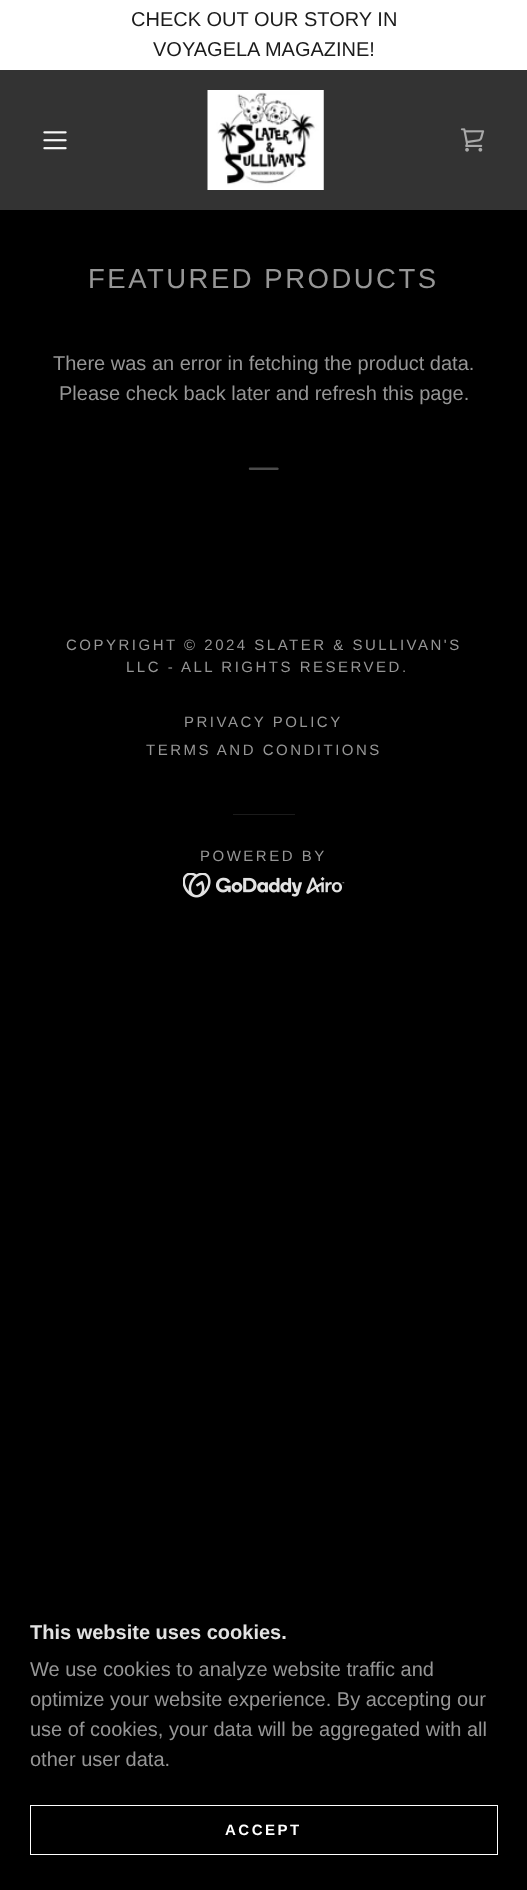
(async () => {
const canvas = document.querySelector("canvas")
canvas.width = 527
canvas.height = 1890
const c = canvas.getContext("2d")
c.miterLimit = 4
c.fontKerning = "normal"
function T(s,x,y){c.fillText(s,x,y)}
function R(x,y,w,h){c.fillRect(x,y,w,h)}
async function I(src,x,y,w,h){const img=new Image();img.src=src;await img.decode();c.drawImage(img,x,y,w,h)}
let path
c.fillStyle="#000"
R(0,0,527,1890)
c.fillStyle="#fff"
R(0,0,527,70)
c.font="20px Liberation Sans"
c.fillStyle="#1b1b1b"
T("CHECK OUT OUR STORY IN",131,26)
T("VOYAGELA MAGAZINE!",153,56)
c.fillStyle="#333"
R(0,70,527,140)
await I("1.png",43,131,24,19)
await I("2.png",207,90,117,100)
await I("3.png",460,128,25,24)
c.letterSpacing="2.5px"
c.font="27.5px Liberation Sans"
c.fillStyle="#969696"
T("FEATURED PRODUCTS",88,288)
c.letterSpacing="0px"
c.font="20px Liberation Sans"
T("There was an error in fetching the product data.",53,370)
T("Please check back later and refresh this page.",59,400)
c.fillStyle="#4b4b4b"
path = new Path2D("M277.5 470h-27.5c-1.5 0-1.5-2-.5-2.5h28l1 .5c.5 1 0 2-1 2")
c.fill(path,"evenodd")
c.letterSpacing="2.5px"
c.font="15px Liberation Sans"
c.fillStyle="#969696"
T("COPYRIGHT © 2024 SLATER & SULLIVAN'S",66,650)
T("LLC - ALL RIGHTS RESERVED.",126,672)
T("PRIVACY POLICY",184,727)
T("TERMS AND CONDITIONS",146,755)
c.fillStyle="#1b1b1b"
R(233,814,62,1)
c.fillStyle="#969696"
T("POWERED BY",200,861)
await I("4.png",183,873,162,25)
c.letterSpacing="0px"
c.font="bold 20px Liberation Sans"
c.fillStyle="#e2e2e2"
T("This website uses cookies.",30,1639)
c.font="20px Liberation Sans"
c.fillStyle="#969696"
T("We use cookies to analyze website traffic and",30,1676)
T("optimize your website experience. By accepting our",30,1706)
T("use of cookies, your data will be aggregated with all",30,1736)
T("other user data.",30,1766)
c.strokeStyle="#fff"
c.strokeRect(30.5,1805.5,467,49)
c.letterSpacing="2.5px"
c.font="bold 15px Liberation Sans"
c.fillStyle="#fff"
T("ACCEPT",225,1835)
})()
